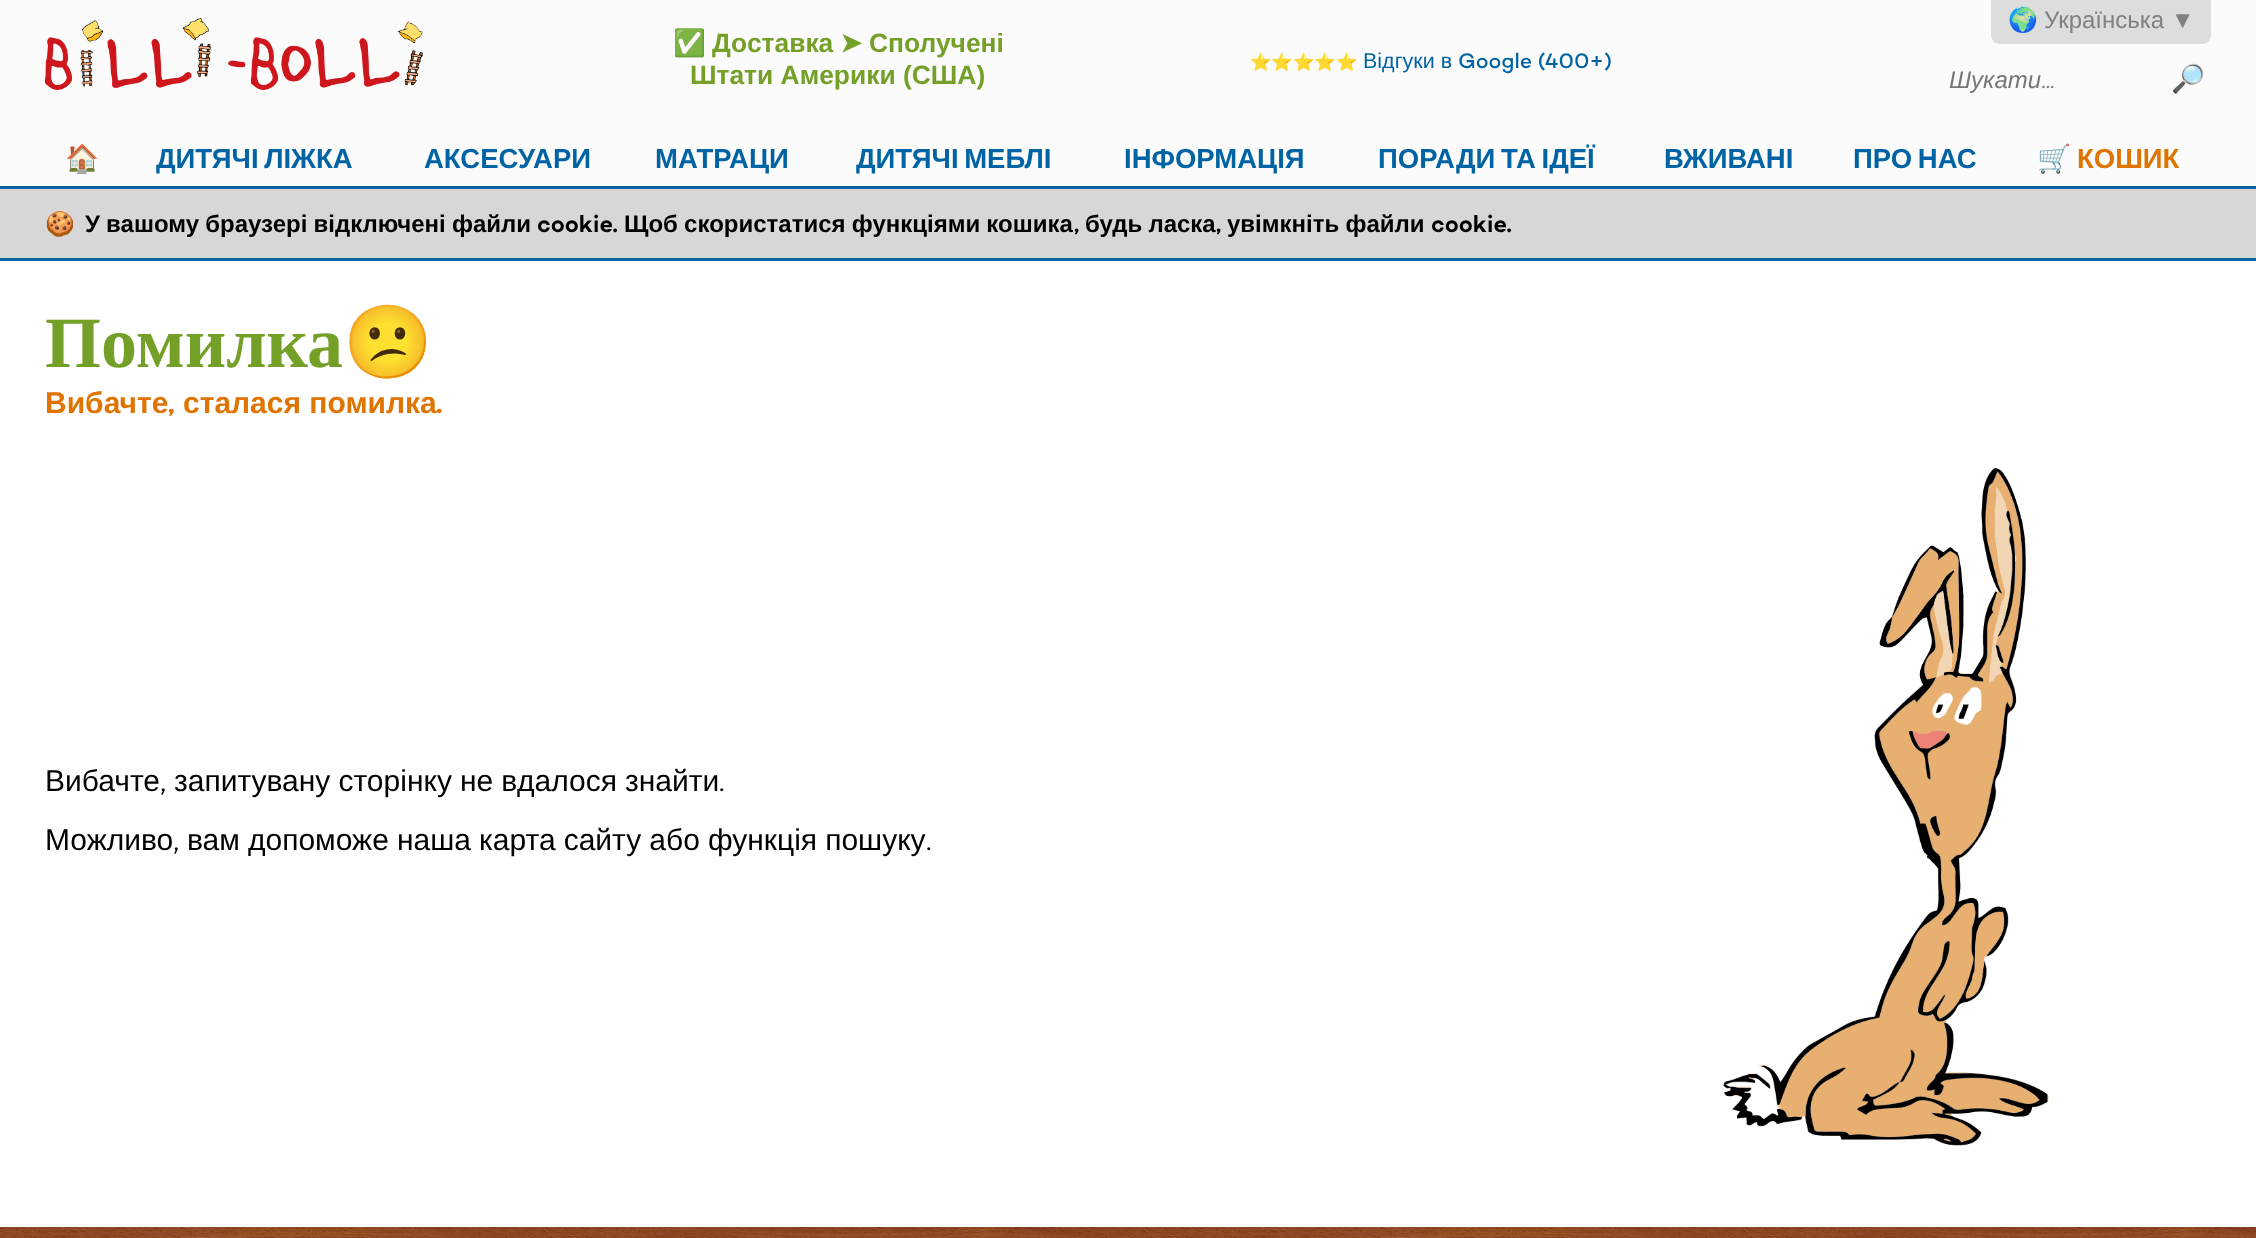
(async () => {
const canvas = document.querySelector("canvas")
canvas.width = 2256
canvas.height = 1238
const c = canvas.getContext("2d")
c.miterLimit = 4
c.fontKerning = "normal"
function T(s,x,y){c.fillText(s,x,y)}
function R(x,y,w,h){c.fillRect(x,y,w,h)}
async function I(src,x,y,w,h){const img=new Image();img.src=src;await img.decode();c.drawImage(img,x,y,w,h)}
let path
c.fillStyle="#fff"
R(0,0,2256,1238)
c.fillStyle="#fbfbfb"
R(0,0,2256,186)
await I("1.png",45,18,378,72)
c.font="bold 26.4px Noto Color Emoji"
c.fillStyle="#74a027"
T("✅",673,52)
c.font="bold 26.4px Liberation Sans"
T("Доставка",712,52)
c.font="bold 26.4px DejaVu Sans"
T("➤",840,52)
c.font="bold 26.4px Liberation Sans"
T("Сполучені",869,52)
T("Штати Америки (США)",690,84)
c.font="17.25px Noto Color Emoji"
c.fillStyle="#0063a3"
T("⭐⭐⭐⭐⭐",1250,68)
c.font="21.5px Liberation Sans"
T("Відгуки в",1363,68)
c.font="21.5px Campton"
T("Google (400+)",1458,68)
c.fillStyle="#ddd"
path = new Path2D("M1991-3h220v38c0 5-4 9-9 9h-202c-5 0-9-4-9-9z")
c.fill(path)
c.font="24px Noto Color Emoji"
c.fillStyle="#808080"
T("🌍",2008,28)
c.font="24px Liberation Sans"
T("Українська ▼",2044,28)
c.font="italic 24px Liberation Sans"
c.fillStyle="#777"
T("Шукати",1949,88)
c.font="italic 24px Campton"
T("...",2041,88)
c.font="bold 27.5px Noto Color Emoji"
c.fillStyle="#0063a3"
T("🔎",2171,88)
R(0,186,2256,3)
T("🏠",65,168)
c.wordSpacing="-2px"
c.font="bold 27.5px Liberation Sans"
T("ДИТЯЧІ ЛІЖКА",156,168)
c.wordSpacing="0px"
T("АКСЕСУАРИ",424,168)
T("МАТРАЦИ",655,168)
c.wordSpacing="-2px"
T("ДИТЯЧІ МЕБЛІ",856,168)
c.wordSpacing="0px"
T("ІНФОРМАЦІЯ",1124,168)
c.wordSpacing="-2px"
T("ПОРАДИ ТА ІДЕЇ",1378,168)
c.wordSpacing="0px"
T("ВЖИВАНІ",1664,168)
c.wordSpacing="-2px"
T("ПРО НАС",1853,168)
c.wordSpacing="0px"
c.font="bold 27.5px Noto Color Emoji"
c.fillStyle="#e07400"
T("🛒",2037,168)
c.font="bold 27.5px Liberation Sans"
T("КОШИК",2077,168)
c.fillStyle="#d7d7d7"
R(0,189,2256,69)
c.fillStyle="#0063a3"
R(0,258,2256,3)
c.font="24px Noto Color Emoji"
c.fillStyle="#000"
T("🍪",45,232)
c.wordSpacing="-0.5px"
c.font="bold 24px Liberation Sans"
T("У вашому браузері відключені файли",85,232)
c.wordSpacing="0px"
c.font="24px 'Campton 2'"
T("cookie.",537,232)
c.wordSpacing="-0.5px"
c.font="bold 24px Liberation Sans"
T("Щоб скористатися функціями кошика",624,232)
c.wordSpacing="0px"
c.font="24px 'Campton 2'"
T(",",1074,232)
c.wordSpacing="-0.5px"
c.font="bold 24px Liberation Sans"
T("будь ласка",1085,232)
c.wordSpacing="0px"
c.font="24px 'Campton 2'"
T(",",1216,232)
c.wordSpacing="-0.5px"
c.font="bold 24px Liberation Sans"
T("увімкніть файли",1227,232)
c.wordSpacing="0px"
c.font="24px 'Campton 2'"
T("cookie.",1431,232)
c.font="bold 72px Liberation Serif"
c.fillStyle="#74a027"
T("Помилка",45,367)
c.font="bold 72px Noto Color Emoji"
T("😕",343,367)
c.font="bold 30px Liberation Sans"
c.fillStyle="#e07400"
T("Вибачте",45,413)
c.font="30px 'Campton 2'"
T(",",168,413)
c.font="bold 30px Liberation Sans"
T("сталася помилка",183,413)
c.font="30px 'Campton 2'"
T(".",436,413)
c.font="30px Liberation Sans"
c.fillStyle="#000"
T("Вибачте",45,791)
c.font="30px 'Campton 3'"
T(",",160,791)
c.wordSpacing="-0.25px"
c.font="30px Liberation Sans"
T("запитувану сторінку не вдалося знайти",174,791)
c.wordSpacing="0px"
c.font="30px 'Campton 3'"
T(".",719,791)
c.font="30px Liberation Sans"
T("Можливо",45,850)
c.font="30px 'Campton 3'"
T(",",173,850)
c.wordSpacing="-0.25px"
c.font="30px Liberation Sans"
T("вам допоможе наша карта сайту або функція пошуку",187,850)
c.wordSpacing="0px"
c.font="30px 'Campton 3'"
T(".",926,850)
await I("2.png",1723,468,326,678)
await I("3.png",0,1227,2256,11)
})()
